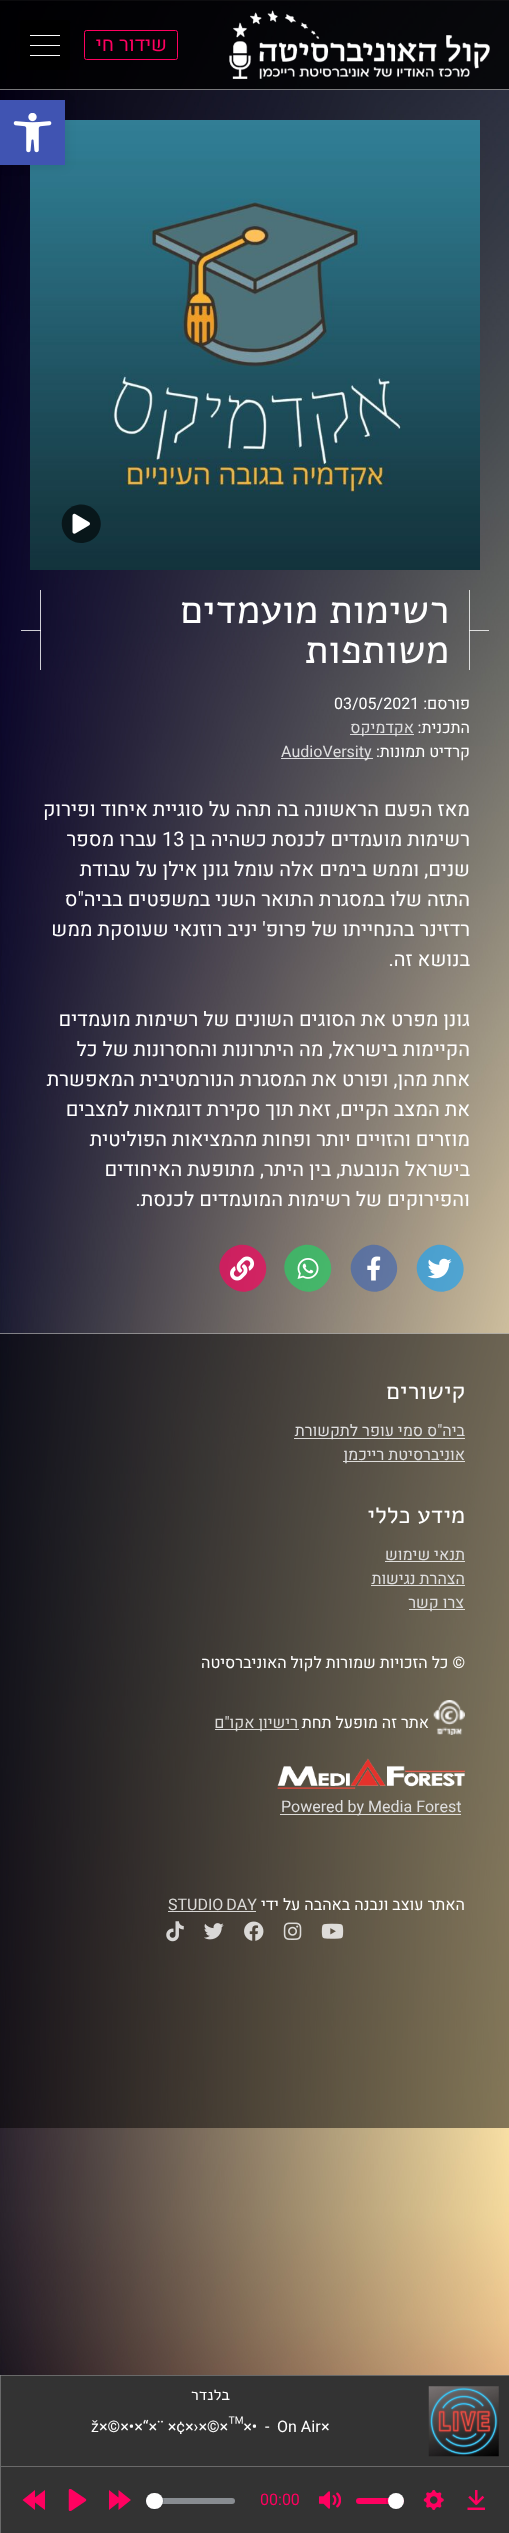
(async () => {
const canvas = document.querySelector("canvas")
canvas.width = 509
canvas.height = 2533
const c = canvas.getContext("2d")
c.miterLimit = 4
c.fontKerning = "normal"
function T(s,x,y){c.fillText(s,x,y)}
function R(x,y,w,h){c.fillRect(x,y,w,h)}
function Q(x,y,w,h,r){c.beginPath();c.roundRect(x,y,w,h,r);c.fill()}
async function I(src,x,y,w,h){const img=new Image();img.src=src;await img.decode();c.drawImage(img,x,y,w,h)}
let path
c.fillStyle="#fff"
R(0,0,509,2533)
await I("1.png",0,0,509,2375)
await I("3.png",30,120,450,450)
c.fillStyle="#0000001a"
c.filter="blur(6px)"
c.beginPath()
c.rect(0,100,65,65)
c.fill()
c.filter="none"
c.fillStyle="#000000cc"
R(0,0,509,90)
c.fillStyle="#ffffff78"
R(0,89,509,1)
await I("2.png",229,10,261,69)
c.beginPath()
c.roundRect(84.5,30.5,93,29,2)
c.strokeStyle="#ff0160"
c.stroke()
c.direction="rtl"
c.font="20px Heebo"
c.fillStyle="#ff0160"
T("שידור חי",167,51)
c.fillStyle="#000"
Q(20,20,50,50,2.5)
c.fillStyle="#fff"
R(30,35,30,1)
R(30,45,30,1)
R(30,55,30,1)
c.fillStyle="#00000099"
path = new Path2D("M67.5 510c3-3 7.5-5 12-5.5c18-1.5 28.5 20 15.5 33c-3 3-7.5 5-12 5.5c-18 1.5-28.5-20-15.5-33z")
c.fill(path)
await I("4.png",72,513,18,21)
c.fillStyle="#ffffffcc"
R(469,590,1,80)
R(40,590,1,80)
c.font="40px Alef"
c.fillStyle="#fff"
T("רשימות מועמדים",449,623)
c.fillStyle="#ffffffcc"
R(469,630,20,1)
R(21,630,20,1)
c.fillStyle="#fff"
T("משותפות",449,663)
c.font="16px Heebo"
T("פורסם:",470,709)
c.direction="ltr"
T("03/05/2021",334,709)
c.direction="rtl"
T("התכנית:",470,733)
c.fillStyle="#ffffffcc"
R(350,734,64,1)
c.fillStyle="#dededf"
T("אקדמיקס",414,733)
c.fillStyle="#fff"
T("קרדיט תמונות:",470,757)
c.fillStyle="#ffffffcc"
R(281,758,92,1)
c.direction="ltr"
c.fillStyle="#dededf"
T("AudioVersity",281,757)
c.direction="rtl"
c.font="20px Heebo"
c.fillStyle="#fff"
T("מאז הפעם הראשונה בה תהה על סוגיית איחוד ופירוק",470,816)
T("רשימות מועמדים לכנסת כשהיה בן",470,846)
c.direction="ltr"
T("13",162,846)
c.direction="rtl"
T("עברו מספר",157,846)
T("שנים, וממש בימים אלה עומל גונן אילן על עבודת",470,876)
T("התזה שלו במסגרת התואר השני במשפטים בביה\"ס",470,906)
T("רדזינר בהנחייתו של פרופ' יניב רוזנאי שעוסקת ממש",470,936)
T("בנושא זה.",470,966)
T("גונן מפרט את הסוגים השונים של רשימות מועמדים",470,1026)
T("הקיימות בישראל, מה היתרונות והחסרונות של כל",470,1056)
T("אחת מהן, ופורט את המסגרת הנורמטיבית המאפשרת",470,1086)
T("את המצב הקיים, זאת תוך סקירת דוגמאות למצבים",470,1116)
T("מוזרים והזויים יותר ופחות מהמציאות הפוליטית",470,1146)
T("בישראל הנובעת, בין היתר, מתופעת האיחודים",470,1176)
T("והפירוקים של רשימות המועמדים לכנסת.",470,1206)
c.fillStyle="#1da1f2ab"
path = new Path2D("M424 1252c21-22 54 11 33 33c-22 21-55-12-33-33z")
c.fill(path)
await I("5.png",427,1258,25,21)
c.fillStyle="#4267b2ab"
path = new Path2D("M358 1252c21-22 54 11 32 33c-21 21-54-12-32-33z")
c.fill(path)
await I("6.png",367,1256,14,25)
c.fillStyle="#25d366ab"
path = new Path2D("M291 1252c22-22 55 11 33 33c-21 21-54-12-33-33z")
c.fill(path)
await I("7.png",297,1258,22,21)
c.fillStyle="#ff0160ab"
path = new Path2D("M226 1252c22-22 55 11 33 33c-21 21-54-12-33-33z")
c.fill(path)
await I("8.png",230,1256,25,25)
c.fillStyle="#00000078"
R(0,1333,509,795)
c.fillStyle="#ffffff78"
R(0,1333,509,1)
c.font="24px Alef"
c.fillStyle="#fff"
T("קישורים",465,1399)
c.fillStyle="#ffffffcc"
R(294,1438,171,1)
c.font="16px Heebo"
c.fillStyle="#dededf"
T("ביה\"ס סמי עופר לתקשורת",465,1436)
c.fillStyle="#ffffffcc"
R(343,1461,122,1)
c.fillStyle="#dededf"
T("אוניברסיטת רייכמן",465,1460)
c.font="24px Alef"
c.fillStyle="#fff"
T("מידע כללי",465,1523)
c.font="16px Heebo"
c.fillStyle="#dededf"
T("תנאי שימוש",465,1560)
c.fillStyle="#ffffffcc"
R(385,1561,80,1)
c.fillStyle="#dededf"
T("הצהרת נגישות",465,1584)
c.fillStyle="#ffffffcc"
R(371,1585,94,1)
R(409,1609,56,1)
c.fillStyle="#dededf"
T("צרו קשר",464,1608)
c.fillStyle="#fff"
T("© כל הזכויות שמורות לקול האוניברסיטה",465,1668)
await I("9.png",433,1700,32,35)
T("אתר זה מופעל תחת",429,1728)
c.fillStyle="#ffffffcc"
R(215,1729,84,1)
c.fillStyle="#dbdad8"
T("רישיון אקו\"ם",298,1728)
await I("10.png",277,1758,188,31)
c.fillStyle="#ffffffcc"
R(280,1814,181,1)
c.direction="ltr"
c.fillStyle="#dededf"
T("Powered by Media Forest",281,1812)
c.direction="rtl"
c.fillStyle="#fff"
T("האתר עוצב ונבנה באהבה על ידי",465,1910)
c.wordSpacing="-1px"
c.direction="ltr"
c.fillStyle="#dbdad8"
T("STUDIO DAY",168,1910)
c.fillStyle="#ffffffcc"
R(168,1911,88,1)
await I("11.png",321,1923,23,16)
await I("12.png",283,1922,19,18)
await I("13.png",244,1921,20,20)
await I("14.png",204,1923,20,17)
await I("15.png",166,1921,18,21)
c.fillStyle="#333"
c.beginPath()
c.rect(.5,2375.5,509,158)
c.fill()
c.strokeStyle="#696969"
c.stroke()
await I("16.png",428,2386,71,71)
c.wordSpacing="0px"
c.direction="rtl"
c.font="16px Alef"
c.fillStyle="#fff"
T("בלנדר",230,2400)
c.direction="ltr"
c.font="16px Heebo"
T("×",321,2432)
T("On Air",277,2432)
T("-",265,2432)
T("×©×•×“×¨ ×¢×›×©×™×•",99,2432)
c.font="16px Liberation Sans"
T("ž",91,2432)
c.fillStyle="#696969"
R(1,2466,508,1)
await I("17.png",467,2490,18,20)
await I("18.png",423,2490,21,20)
c.fillStyle="#ff0160"
Q(356,2498,48,6,3)
c.beginPath()
c.arc(395.5,2500.5,9,0,7)
c.strokeStyle="#23282f33"
c.stroke()
c.fillStyle="#23282f26"
c.filter="blur(0.5px)"
c.beginPath()
c.roundRect(388,2494,16,16,8)
c.fill()
c.filter="none"
c.fillStyle="#fff"
c.beginPath()
c.arc(396,2501,8,0,7)
c.fill()
await I("19.png",319,2491,22,18)
c.font="16px Heebo"
c.fillStyle="#ff0160"
T("00:00",260,2505)
c.fillStyle="#c1c8d199"
Q(146,2498,89,6,3)
c.beginPath()
c.arc(154.5,2500.5,9,0,7)
c.stroke()
c.fillStyle="#23282f26"
c.filter="blur(0.5px)"
c.beginPath()
c.roundRect(146,2494,17,16,8)
c.fill()
c.filter="none"
c.fillStyle="#fff"
Q(146,2493,17,16,8)
c.fillStyle="#ff0160"
path = new Path2D("M118.5 2497.5l-9.5-7.5v20l9.5-7.5v7.5l12.5-10l-12.5-10z")
c.fill(path)
await I("20.png",68,2489,19,22)
path = new Path2D("M35 2490l-12.5 10l12.5 10v-7.5l10 7.5v-20l-10 7.5z")
c.fill(path)
c.fillStyle="#4054b2"
R(0,100,65,65)
await I("21.png",13,113,39,40)
})()
